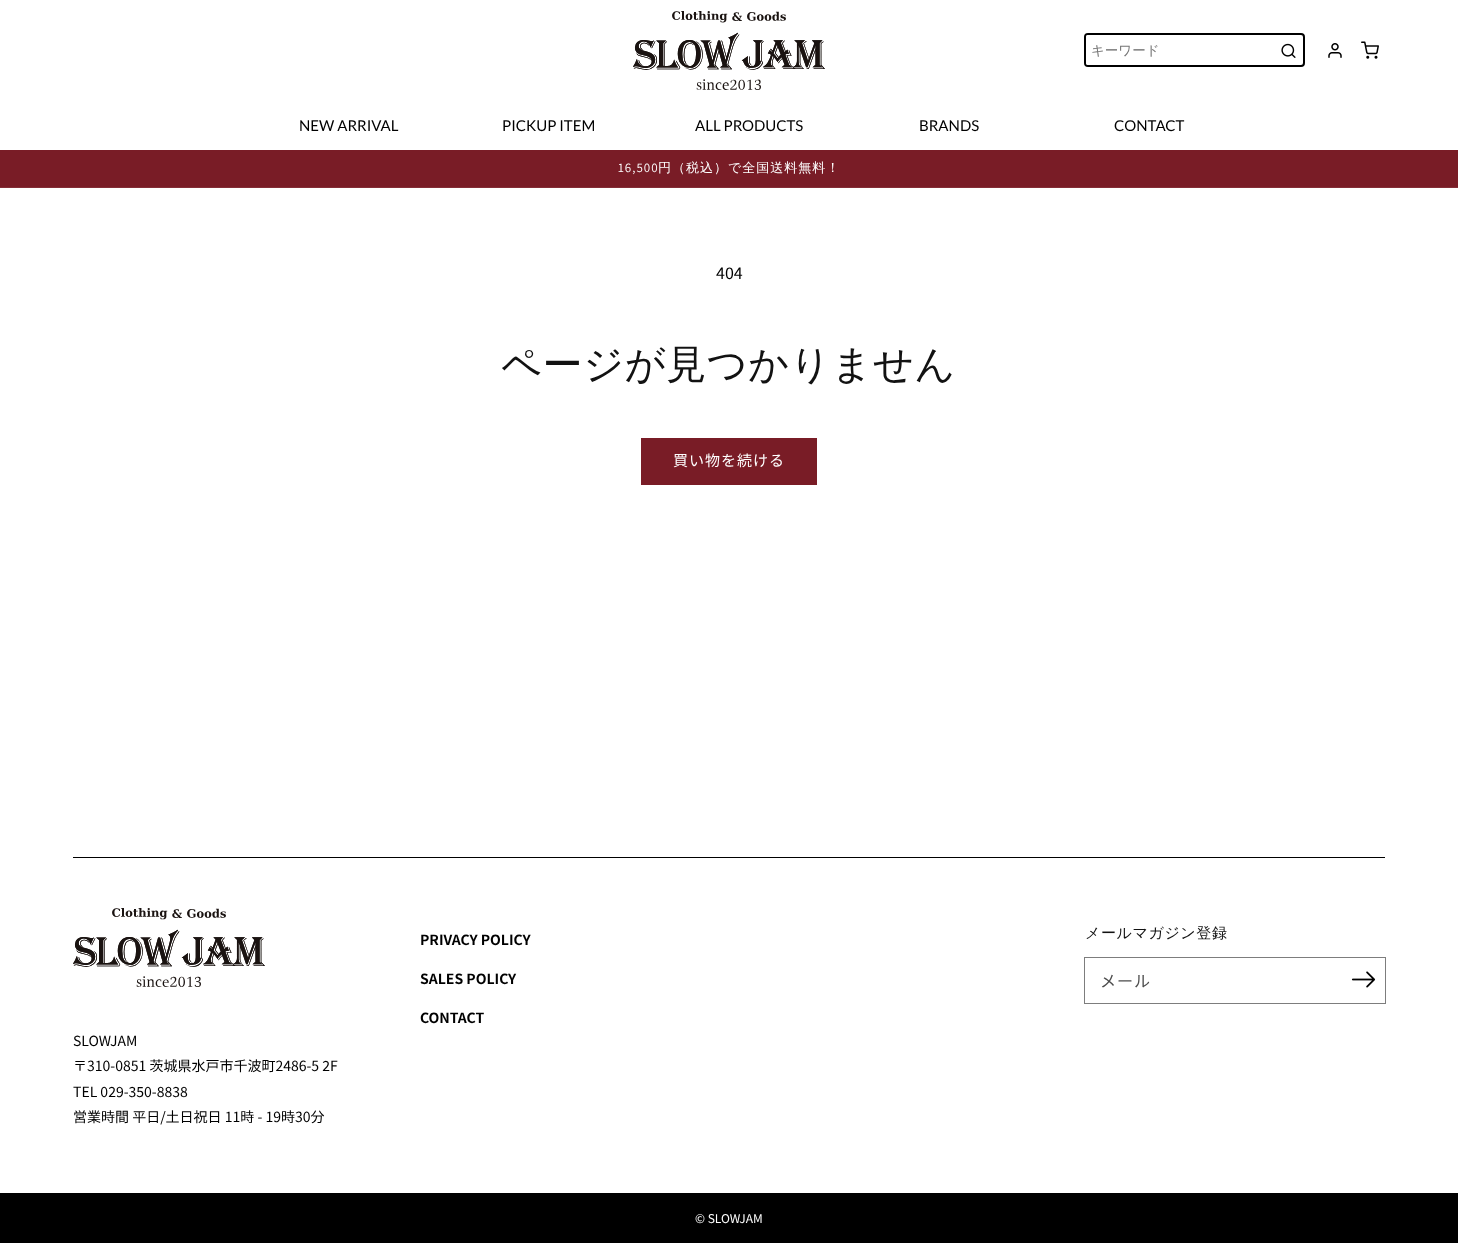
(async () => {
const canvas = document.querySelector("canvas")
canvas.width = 1458
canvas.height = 1243
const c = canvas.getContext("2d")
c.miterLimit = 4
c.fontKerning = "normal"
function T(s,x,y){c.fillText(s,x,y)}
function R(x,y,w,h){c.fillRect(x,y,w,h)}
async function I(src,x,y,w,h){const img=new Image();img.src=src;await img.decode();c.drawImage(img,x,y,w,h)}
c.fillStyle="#fff"
R(0,0,1458,1243)
await I("1.png",633,11,192,79)
c.beginPath()
c.roundRect(1085,34,219,32,3)
c.strokeStyle="#000"
c.lineWidth=2
c.stroke()
c.beginPath()
c.roundRect(1086,35,187,30,[2,0,0,2])
c.fill()
c.font="500 13.5px WenQuanYi Zen Hei"
c.fillStyle="#757575"
T("キーワード",1091,55)
await I("2.png",1281,43,15,15)
await I("3.png",1328,43,14,15)
await I("4.png",1361,41,18,18)
c.font="15px Lato"
c.fillStyle="#000"
T("NEW ARRIVAL",299,131)
T("PICKUP ITEM",502,131)
T("ALL PRODUCTS",695,131)
T("BRANDS",919,131)
T("CONTACT",1114,131)
c.fillStyle="#791c26"
R(0,150,1458,37)
c.fillStyle="#842e37"
R(0,187,1458,1)
c.letterSpacing="1px"
c.font="13px Assistant"
c.fillStyle="#fff"
T("16,500",618,172)
c.font="500 13px WenQuanYi Zen Hei"
T("円（税込）で全国送料無料！",658,172)
c.letterSpacing="0px"
c.font="16px Noto Sans JP"
c.fillStyle="#000"
T("404",716,279)
c.letterSpacing="0.6px"
c.font="500 40px WenQuanYi Zen Hei"
c.fillStyle="#121212"
T("ページが見つかりません",501,378)
c.strokeStyle="#791c26"
c.lineWidth=1
c.strokeRect(641.5,438.5,175,46)
c.fillStyle="#791c26"
R(642,439,174,45)
c.letterSpacing="1px"
c.font="15px Noto Sans JP"
c.fillStyle="#fff"
T("買い物を続ける",673,466)
c.fillStyle="#000"
R(73,857,1312,1)
c.letterSpacing="0px"
c.font="bold 14px Noto Sans JP"
T("PRIVACY POLICY",420,945)
T("SALES POLICY",420,984)
T("CONTACT",420,1023)
c.letterSpacing="0.6px"
c.font="500 15px WenQuanYi Zen Hei"
c.fillStyle="#121212"
T("メールマガジン登録",1085,938)
c.strokeStyle="#7d7d7d"
c.strokeRect(1084.5,957.5,301,46)
c.letterSpacing="1px"
c.font="16px Noto Sans JP"
c.fillStyle="#4d4d4d"
T("メール",1100,987)
await I("5.png",1351,971,25,17)
await I("6.png",73,908,192,79)
c.letterSpacing="0px"
c.font="14px Noto Sans JP"
c.fillStyle="#000"
T("SLOWJAM",73,1046)
T("〒310-0851 茨城県⽔⼾市千波町2486-5 2F",73,1071)
T("TEL 029-350-8838",73,1097)
T("営業時間 平⽇/⼟⽇祝⽇ 11時 - 19時30分",73,1122)
R(0,1193,1458,50)
c.font="12px Noto Sans JP"
c.fillStyle="#fff"
T("© SLOWJAM",695,1223)
})()
